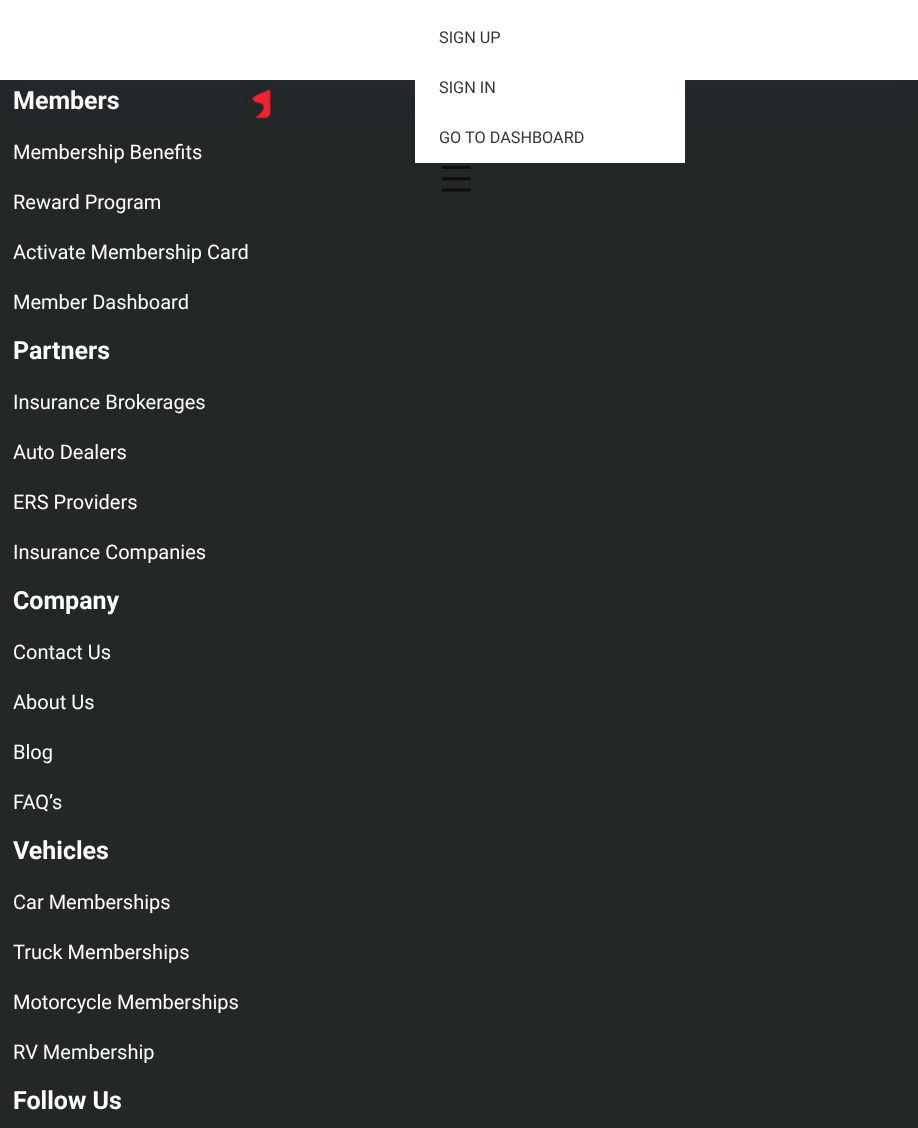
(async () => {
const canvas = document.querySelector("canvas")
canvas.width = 918
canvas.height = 1128
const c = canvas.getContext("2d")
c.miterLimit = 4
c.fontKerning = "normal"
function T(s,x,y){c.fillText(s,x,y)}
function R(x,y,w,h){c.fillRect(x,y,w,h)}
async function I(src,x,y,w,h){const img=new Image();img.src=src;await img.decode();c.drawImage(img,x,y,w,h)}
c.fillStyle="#232728"
R(0,0,918,1128)
c.font="bold 25px Roboto"
c.fillStyle="#fff"
T("Members",13,109)
c.font="20px Roboto"
T("Membership Benefits",13,159)
T("Reward Program",13,209)
T("Activate Membership Card",13,259)
T("Member Dashboard",13,309)
c.font="bold 25px Roboto"
T("Partners",13,359)
c.font="20px Roboto"
T("Insurance Brokerages",13,409)
T("Auto Dealers",13,459)
T("ERS Providers",13,509)
T("Insurance Companies",13,559)
c.font="bold 25px Roboto"
T("Company",13,609)
c.font="20px Roboto"
T("Contact Us",13,659)
T("About Us",13,709)
T("Blog",13,759)
T("FAQ’s",13,809)
c.font="bold 25px Roboto"
T("Vehicles",13,859)
c.font="20px Roboto"
T("Car Memberships",13,909)
T("Truck Memberships",13,959)
T("Motorcycle Memberships",13,1009)
T("RV Membership",13,1059)
c.font="bold 25px Roboto"
T("Follow Us",13,1109)
c.fillStyle="#30465926"
c.filter="blur(19px)"
c.beginPath()
c.rect(0,3,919,80)
c.fill()
c.filter="none"
c.fillStyle="#fff"
R(0,0,918,80)
await I("1.png",240,86,31,33)
R(415,80,270,83)
c.font="16.25px Roboto"
c.fillStyle="#33373d"
T("SIGN UP",439,43)
T("SIGN IN",439,93)
T("GO TO DASHBOARD",439,143)
await I("2.png",441,166,30,26)
})()
